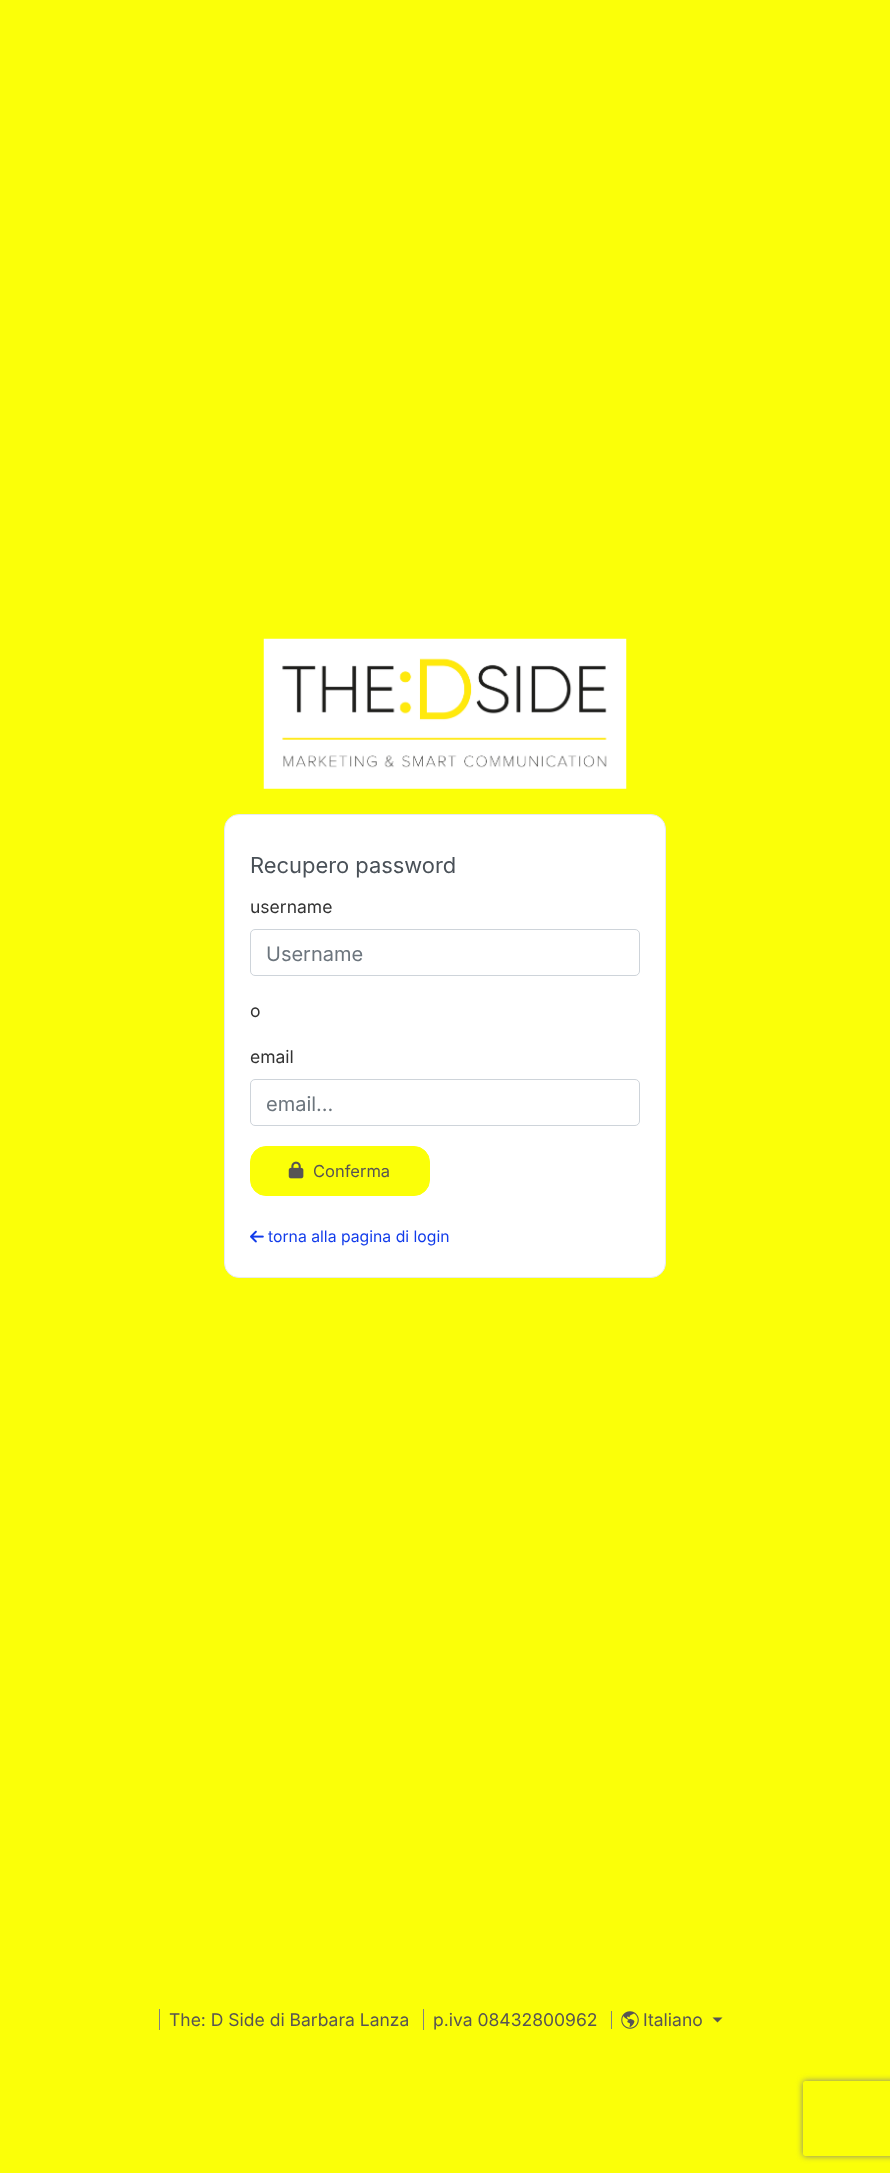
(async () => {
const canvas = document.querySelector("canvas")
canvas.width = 890
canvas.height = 2173
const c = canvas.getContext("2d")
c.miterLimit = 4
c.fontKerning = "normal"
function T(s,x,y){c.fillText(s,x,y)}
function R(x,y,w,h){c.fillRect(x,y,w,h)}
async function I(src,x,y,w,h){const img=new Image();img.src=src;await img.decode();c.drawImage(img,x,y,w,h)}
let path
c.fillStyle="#fbff08"
R(0,0,890,2173)
await I("1.png",263,638,364,151)
c.fillStyle="#fff"
c.beginPath()
c.roundRect(224.5,814.5,441,463,14.5)
c.fill()
c.strokeStyle="#e7eaf0"
c.stroke()
c.font="21.9px Inter"
c.fillStyle="#495057"
T("Recupero password",250,873)
c.font="17.5px Inter"
c.fillStyle="#333"
T("username",250,913)
c.beginPath()
c.roundRect(250.5,929.5,389,46,4.5)
c.strokeStyle="#ced4da"
c.stroke()
c.font="20px Inter"
c.fillStyle="#6c757d"
T("Username",266,961)
c.font="17.5px Inter"
c.fillStyle="#333"
T("o",250,1017)
T("email",250,1063)
c.beginPath()
c.roundRect(250.5,1079.5,389,46,4.5)
c.stroke()
c.font="20px Inter"
c.fillStyle="#6c757d"
T("email...",266,1111)
c.fillStyle="#fbff08"
c.beginPath()
c.roundRect(250.5,1146.5,179,49,15.5)
c.fill()
c.strokeStyle="#fbff08"
c.stroke()
await I("2.png",288,1161,16,18)
c.font="16.5px Inter"
c.fillStyle="#575454"
T("Conferma",313,1177)
await I("3.png",250,1230,14,13)
c.font="15.75px Inter"
c.fillStyle="#113bea"
T("torna alla pagina di login",268,1242)
c.save()
path = new Path2D("M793 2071h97v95h-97zm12.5 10h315c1.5 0 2.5 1 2.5 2.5v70c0 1.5-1 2.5-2.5 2.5h-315c-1.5 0-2.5-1-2.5-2.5v-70c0-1.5 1-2.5 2.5-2.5z")
c.clip(path,"evenodd")
c.fillStyle="#808080"
c.filter="blur(3px)"
c.beginPath()
c.roundRect(803,2081,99,75,2.5)
c.fill()
c.filter="none"
c.restore()
c.font="17.5px Inter"
c.fillStyle="#575454"
T("The: D Side di Barbara Lanza",169,2026)
c.fillStyle="#808284"
R(159,2009,1,21)
c.fillStyle="#575454"
T("p.iva 08432800962",433,2026)
c.fillStyle="#808284"
R(423,2009,1,21)
R(611,2011,1,18)
await I("4.png",621,2011,18,18)
c.fillStyle="#575454"
T("Italiano",643,2026)
path = new Path2D("M712.5 2017.5h10l-5 5z")
c.fill(path)
})()
